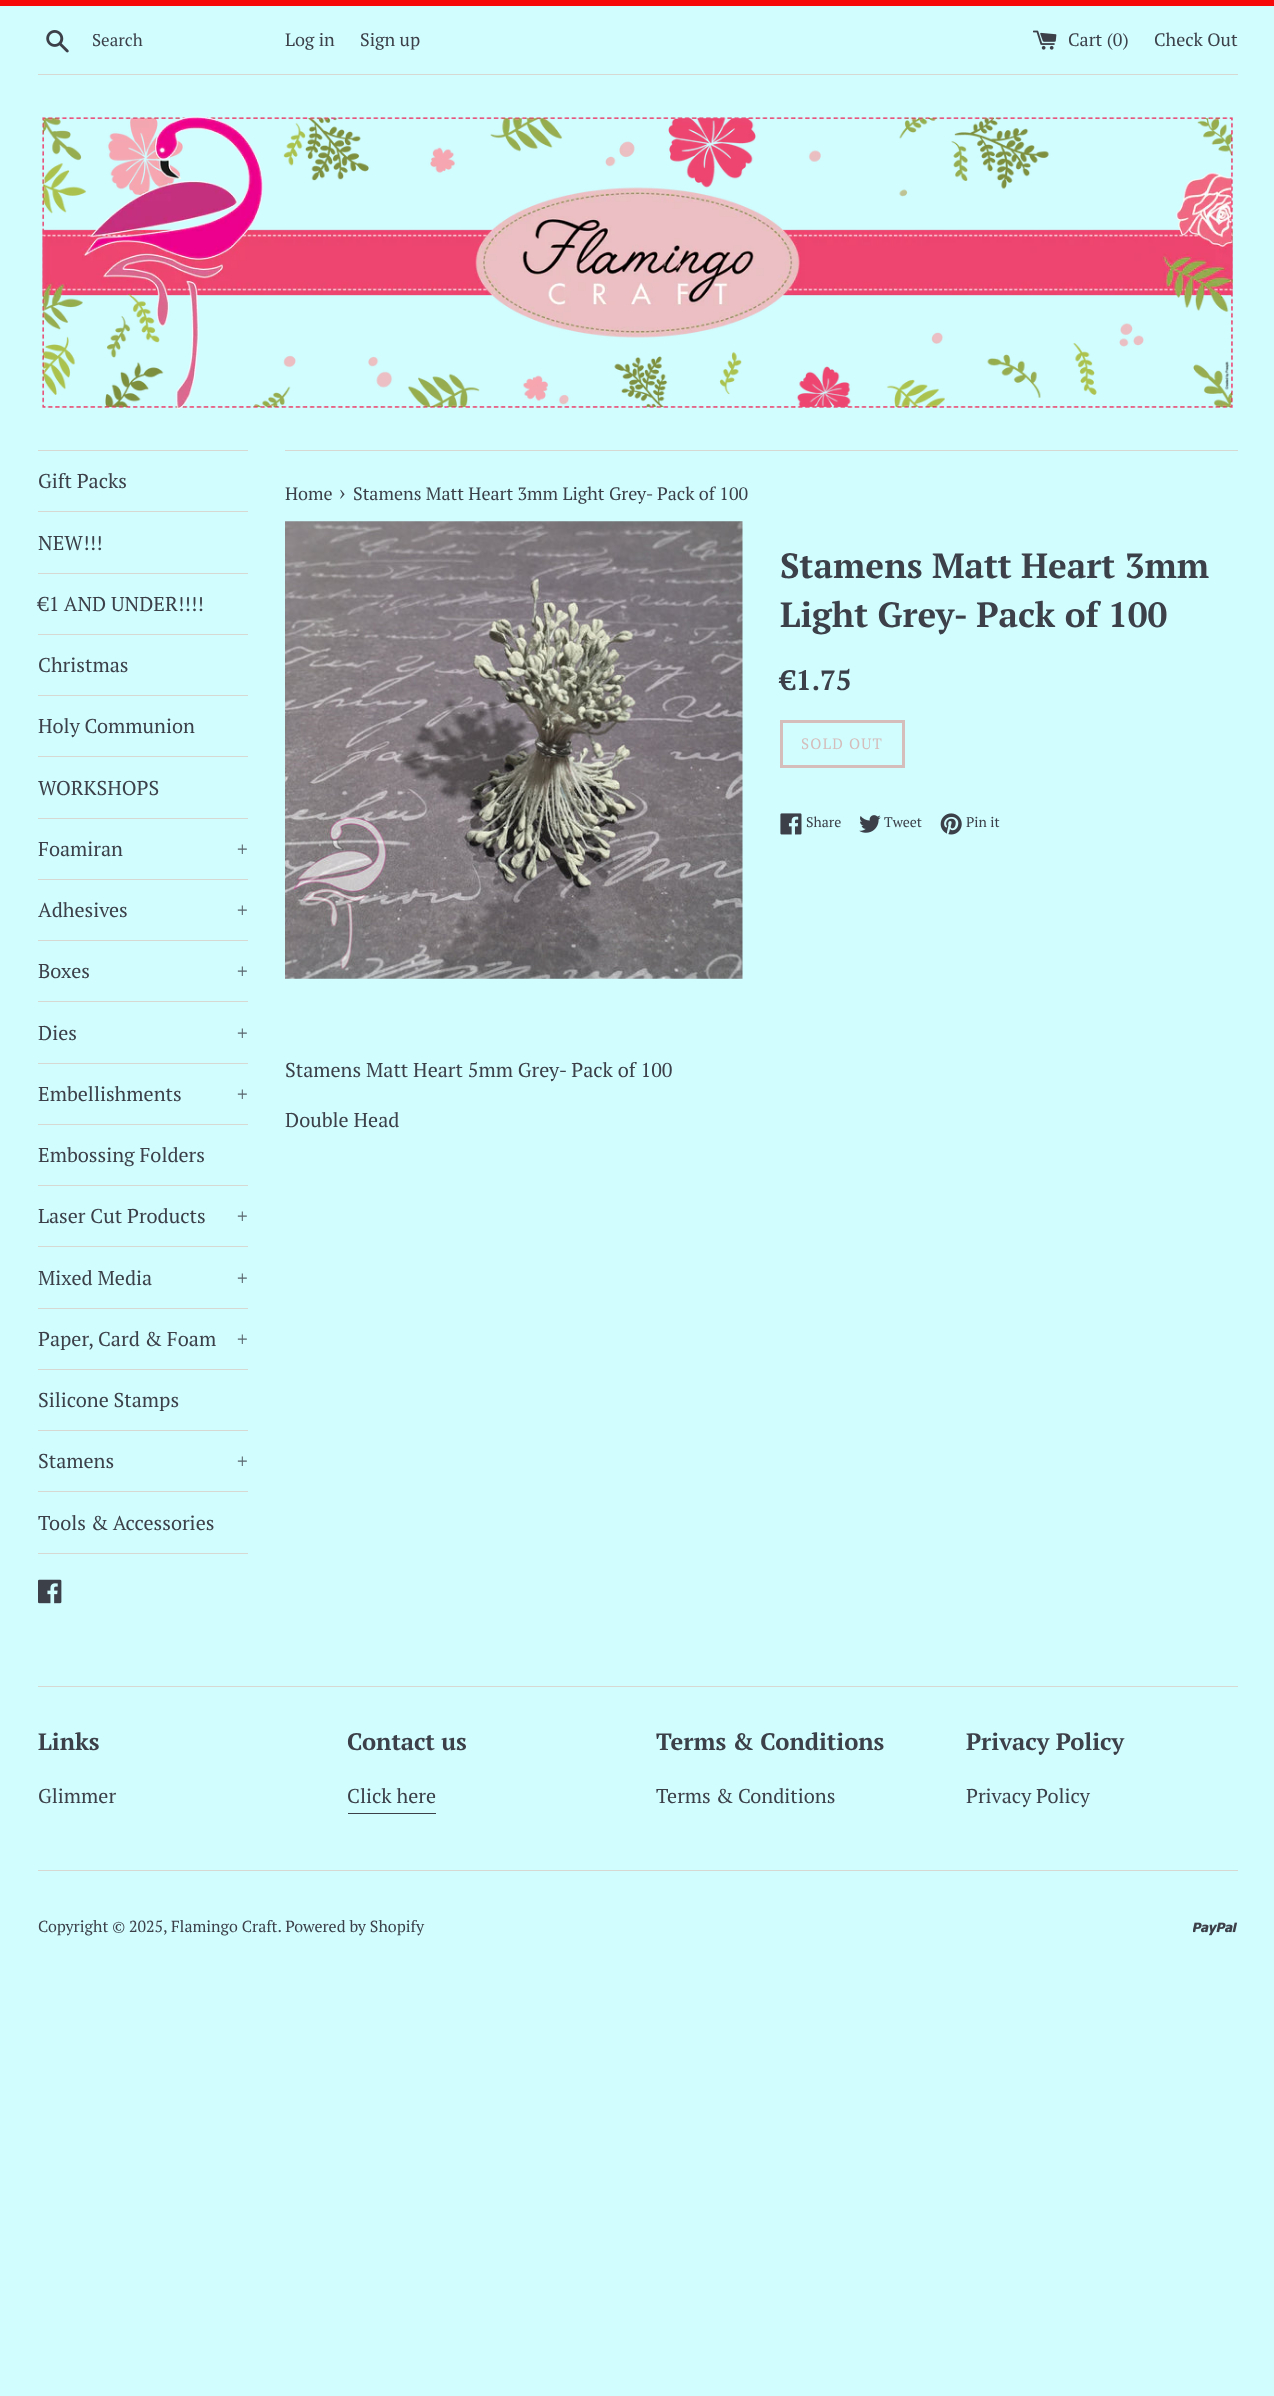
(async () => {
const canvas = document.querySelector("canvas")
canvas.width = 1274
canvas.height = 2396
const c = canvas.getContext("2d")
c.miterLimit = 4
c.fontKerning = "normal"
function T(s,x,y){c.fillText(s,x,y)}
function R(x,y,w,h){c.fillRect(x,y,w,h)}
async function I(src,x,y,w,h){const img=new Image();img.src=src;await img.decode();c.drawImage(img,x,y,w,h)}
c.fillStyle="#d1fdff"
R(0,0,1274,2396)
c.fillStyle="#f70808"
R(0,0,1274,6)
await I("1.png",46,30,23,23)
c.font="17px PT Serif"
c.fillStyle="#3c4049"
T("Search",92,46)
c.font="18px PT Serif"
T("Log in",285,46)
T("Sign up",360,46)
await I("2.png",1033,30,24,20)
T("Cart (0)",1068,46)
T("Check Out",1154,46)
c.fillStyle="#d7d8d2"
R(38,74,1200,1)
await I("3.png",42,116,1191,293)
R(38,450,210,1)
R(38,511,210,1)
c.font="20px PT Serif"
c.fillStyle="#3c4049"
T("Gift Packs",38,488)
c.fillStyle="#d7d8d2"
R(38,573,210,1)
c.fillStyle="#3c4049"
T("NEW!!!",38,550)
c.fillStyle="#d7d8d2"
R(38,634,210,1)
c.fillStyle="#3c4049"
T("€1 AND UNDER!!!!",38,611)
c.fillStyle="#d7d8d2"
R(38,695,210,1)
c.fillStyle="#3c4049"
T("Christmas",38,672)
c.fillStyle="#d7d8d2"
R(38,756,210,1)
c.fillStyle="#3c4049"
T("Holy Communion",38,733)
c.fillStyle="#d7d8d2"
R(38,818,210,1)
c.fillStyle="#3c4049"
T("WORKSHOPS",38,795)
c.fillStyle="#d7d8d2"
R(38,879,210,1)
c.fillStyle="#3c4049"
T("Foamiran",38,856)
c.fillStyle="#5a666d"
T("+",237,856)
c.fillStyle="#d7d8d2"
R(38,940,210,1)
c.fillStyle="#3c4049"
T("Adhesives",38,917)
c.fillStyle="#5a666d"
T("+",237,917)
c.fillStyle="#d7d8d2"
R(38,1001,210,1)
c.fillStyle="#3c4049"
T("Boxes",38,978)
c.fillStyle="#5a666d"
T("+",237,978)
c.fillStyle="#d7d8d2"
R(38,1063,210,1)
c.fillStyle="#3c4049"
T("Dies",38,1040)
c.fillStyle="#5a666d"
T("+",237,1040)
c.fillStyle="#d7d8d2"
R(38,1124,210,1)
c.fillStyle="#3c4049"
T("Embellishments",38,1101)
c.fillStyle="#5a666d"
T("+",237,1101)
c.fillStyle="#d7d8d2"
R(38,1185,210,1)
c.fillStyle="#3c4049"
T("Embossing Folders",38,1162)
c.fillStyle="#d7d8d2"
R(38,1246,210,1)
c.fillStyle="#3c4049"
T("Laser Cut Products",38,1223)
c.fillStyle="#5a666d"
T("+",237,1223)
c.fillStyle="#d7d8d2"
R(38,1308,210,1)
c.fillStyle="#3c4049"
T("Mixed Media",38,1285)
c.fillStyle="#5a666d"
T("+",237,1285)
c.fillStyle="#d7d8d2"
R(38,1369,210,1)
c.fillStyle="#3c4049"
T("Paper, Card & Foam",38,1346)
c.fillStyle="#5a666d"
T("+",237,1346)
c.fillStyle="#d7d8d2"
R(38,1430,210,1)
c.fillStyle="#3c4049"
T("Silicone Stamps",38,1407)
c.fillStyle="#d7d8d2"
R(38,1491,210,1)
c.fillStyle="#3c4049"
T("Stamens",38,1468)
c.fillStyle="#5a666d"
T("+",237,1468)
c.fillStyle="#d7d8d2"
R(38,1553,210,1)
c.fillStyle="#3c4049"
T("Tools & Accessories",38,1530)
await I("4.png",38,1579,24,25)
c.fillStyle="#d7d8d2"
R(285,450,953,1)
c.font="18px PT Serif"
c.fillStyle="#3c4049"
T("Home",285,500)
c.font="22px PT Serif"
T("›",339,500)
c.font="18px PT Serif"
T("Stamens Matt Heart 3mm Light Grey- Pack of 100",353,500)
await I("5.png",285,521,458,458)
c.font="bold 35px PT Serif"
T("Stamens Matt Heart 3mm",780,578)
T("Light Grey- Pack of 100",780,627)
c.font="bold 28px PT Serif"
T("€1.75",780,690)
c.strokeStyle="#d5bdbb"
c.lineWidth=3
c.strokeRect(781.5,721.5,122,45)
c.letterSpacing="1.25px"
c.font="15px PT Serif"
c.fillStyle="#d5bdbb"
T("SOLD OUT",801,749)
await I("6.png",780,813,22,22)
c.letterSpacing="0px"
c.font="14px PT Serif"
c.fillStyle="#3c4049"
T("Share",806,827)
await I("7.png",859,815,22,18)
T("Tweet",884,827)
await I("8.png",940,813,22,22)
T("Pin it",966,827)
c.font="20px PT Serif"
T("Stamens Matt Heart 5mm Grey- Pack of 100",285,1077)
T("Double Head",285,1127)
c.fillStyle="#d7d8d2"
R(38,1686,1200,1)
c.font="bold 23.75px PT Serif"
c.fillStyle="#3c4049"
T("Links",38,1750)
c.font="20px PT Serif"
T("Glimmer",38,1803)
c.font="bold 23.75px PT Serif"
T("Contact us",347,1750)
c.font="20px PT Serif"
T("Click here",347,1803)
R(348,1813,88,1)
c.font="bold 23.75px PT Serif"
T("Terms & Conditions",656,1750)
c.font="20px PT Serif"
T("Terms & Conditions",656,1803)
c.font="bold 23.75px PT Serif"
T("Privacy Policy",966,1750)
c.font="20px PT Serif"
T("Privacy Policy",966,1803)
c.fillStyle="#d7d8d2"
R(38,1870,1200,1)
c.font="16px PT Serif"
c.fillStyle="#3c4049"
T("Copyright © 2025, Flamingo Craft. Powered by Shopify",38,1932)
await I("9.png",1193,1922,45,14)
})()
